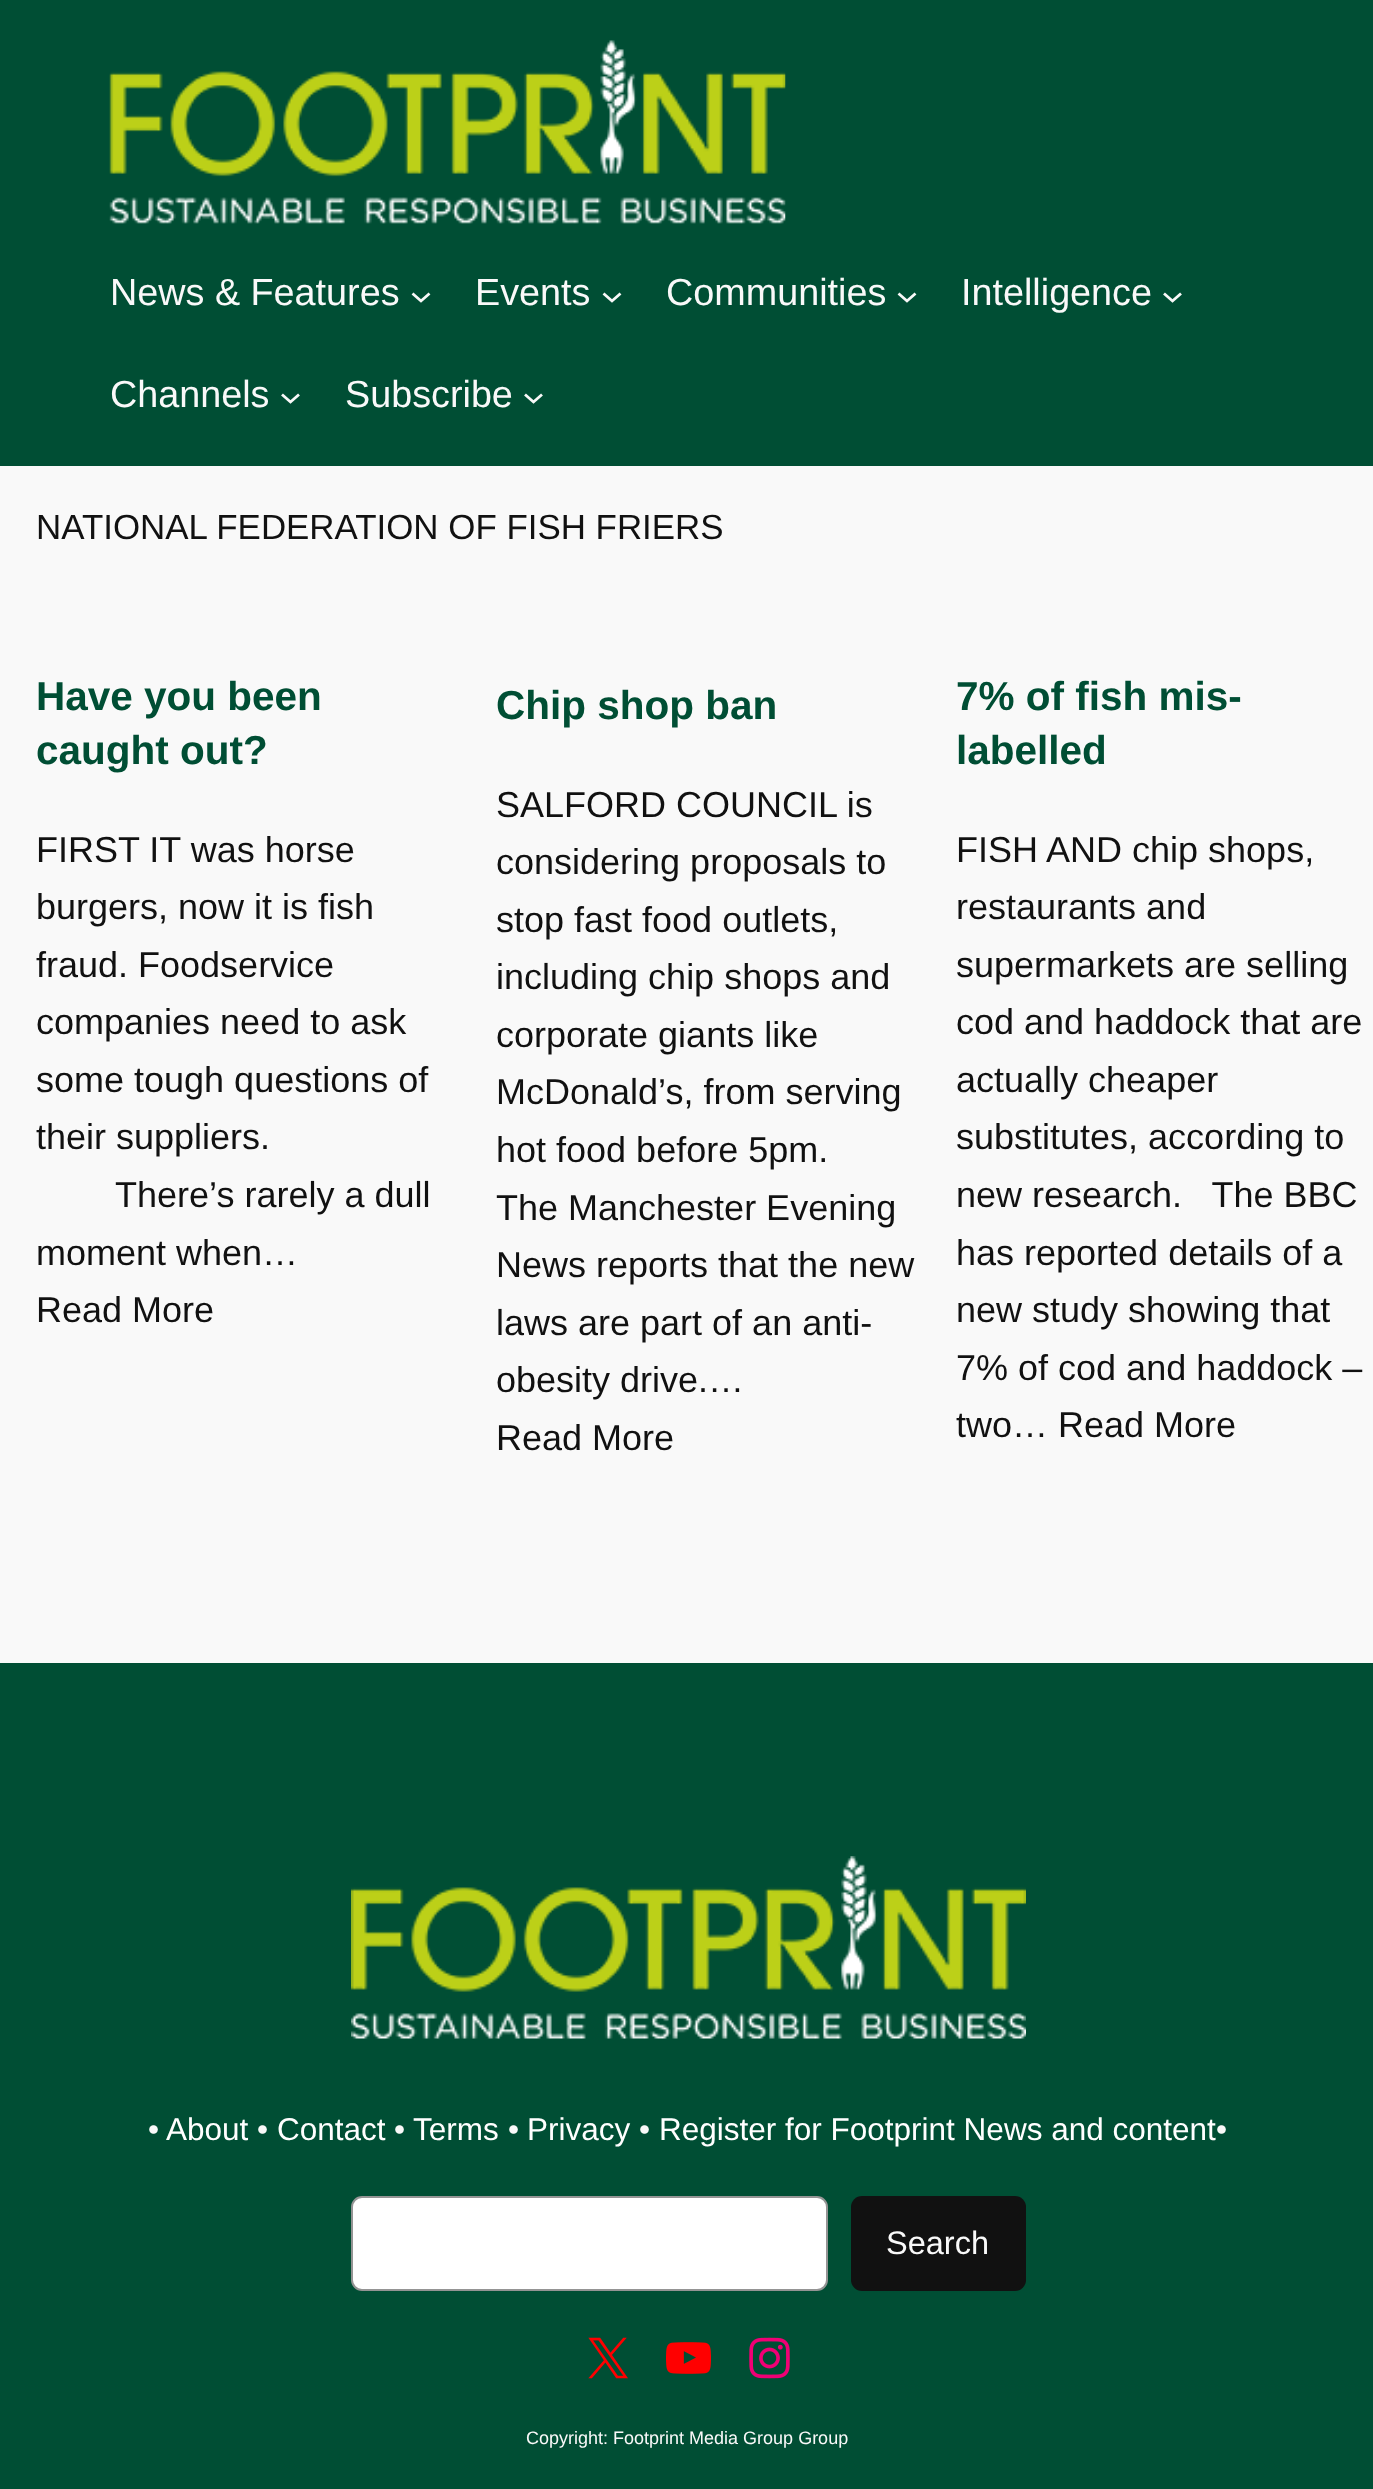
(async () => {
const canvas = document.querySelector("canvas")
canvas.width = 1373
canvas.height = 2489
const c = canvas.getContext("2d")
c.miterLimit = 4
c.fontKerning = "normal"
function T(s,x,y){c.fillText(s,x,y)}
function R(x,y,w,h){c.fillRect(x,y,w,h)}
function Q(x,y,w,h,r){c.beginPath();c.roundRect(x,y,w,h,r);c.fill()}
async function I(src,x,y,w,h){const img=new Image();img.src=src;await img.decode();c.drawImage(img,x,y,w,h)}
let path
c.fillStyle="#f9f9f9"
R(0,0,1373,2489)
c.fillStyle="#004e34"
R(0,0,1373,466)
await I("1.png",109,40,677,184)
c.font="37.75px Liberation Sans"
c.fillStyle="#f9f9f9"
T("News & Features",110,305)
path = new Path2D("M412.5 293.5l8.5 7.5l8.5-7.5")
c.strokeStyle="#f9f9f9"
c.lineWidth=2.8
c.stroke(path)
T("Events",475,305)
path = new Path2D("M603.5 293.5l8.5 7.5l8.5-7.5")
c.stroke(path)
T("Communities",666,305)
path = new Path2D("M898.5 293.5l8.5 7.5l8.5-7.5")
c.stroke(path)
T("Intelligence",961,305)
path = new Path2D("M1164 293.5l8.5 7.5l8.5-7.5")
c.stroke(path)
T("Channels",110,407)
path = new Path2D("M282 394.5l8.5 7.5l8.5-7.5")
c.stroke(path)
T("Subscribe",345,407)
path = new Path2D("M525 394.5l8.5 7.5l8.5-7.5")
c.stroke(path)
c.font="34.9px Liberation Sans"
c.fillStyle="#111"
T("NATIONAL FEDERATION OF FISH FRIERS",36,539)
c.font="bold 40.5px Liberation Sans"
c.fillStyle="#004e34"
T("Have you been",36,710)
T("caught out?",36,764)
c.font="36px Liberation Sans"
c.fillStyle="#111"
T("FIRST IT was horse",36,862)
T("burgers, now it is fish",36,919)
T("fraud. Foodservice",36,977)
T("companies need to ask",36,1034)
T("some tough questions of",36,1092)
T("their suppliers.",36,1149)
T("There’s rarely a dull",115,1207)
T("moment when…",36,1265)
T("Read More",36,1322)
c.font="bold 40.5px Liberation Sans"
c.fillStyle="#004e34"
T("Chip shop ban",496,719)
c.font="36px Liberation Sans"
c.fillStyle="#111"
T("SALFORD COUNCIL is",496,817)
T("considering proposals to",496,874)
T("stop fast food outlets,",496,932)
T("including chip shops and",496,989)
T("corporate giants like",496,1047)
T("McDonald’s, from serving",496,1104)
T("hot food before 5pm.",496,1162)
T("The Manchester Evening",496,1220)
T("News reports that the new",496,1277)
T("laws are part of an anti-",496,1335)
T("obesity drive.…",496,1392)
T("Read More",496,1450)
c.font="bold 40.5px Liberation Sans"
c.fillStyle="#004e34"
T("7% of fish mis-",956,710)
T("labelled",956,764)
c.font="36px Liberation Sans"
c.fillStyle="#111"
T("FISH AND chip shops,",956,862)
T("restaurants and",956,919)
T("supermarkets are selling",956,977)
T("cod and haddock that are",956,1034)
T("actually cheaper",956,1092)
T("substitutes, according to",956,1149)
T("new research.   The BBC",956,1207)
T("has reported details of a",956,1265)
T("new study showing that",956,1322)
T("7% of cod and haddock –",956,1380)
T("two… Read More",956,1437)
c.fillStyle="#004e34"
R(0,1663,1373,826)
await I("2.png",351,1856,675,183)
c.font="31.5px Liberation Sans"
c.fillStyle="#f9f9f9"
T("•",148,2140)
c.fillStyle="#fff"
T("About",166,2140)
c.fillStyle="#f9f9f9"
T("•",257,2140)
c.fillStyle="#fff"
T("Contact",277,2140)
c.fillStyle="#f9f9f9"
T("•",394,2140)
c.fillStyle="#fff"
T("Terms",413,2140)
c.fillStyle="#f9f9f9"
T("•",508,2140)
c.fillStyle="#fff"
T("Privacy",527,2140)
c.fillStyle="#f9f9f9"
T("•",639,2140)
c.fillStyle="#fff"
T("Register for Footprint News and content",659,2140)
c.fillStyle="#f9f9f9"
T("•",1216,2140)
c.fillStyle="#fff"
c.beginPath()
c.roundRect(352,2197,475,93,10)
c.fill()
c.strokeStyle="#949494"
c.lineWidth=2
c.stroke()
c.fillStyle="#111"
Q(851,2196,175,95,11)
c.font="32.5px Liberation Sans"
c.fillStyle="#f9f9f9"
T("Search",886,2254)
await I("3.png",588,2337,40,42)
await I("4.png",666,2342,45,32)
await I("5.png",749,2337,41,42)
c.font="18px Liberation Sans"
T("Copyright: Footprint Media Group Group",526,2444)
})()
